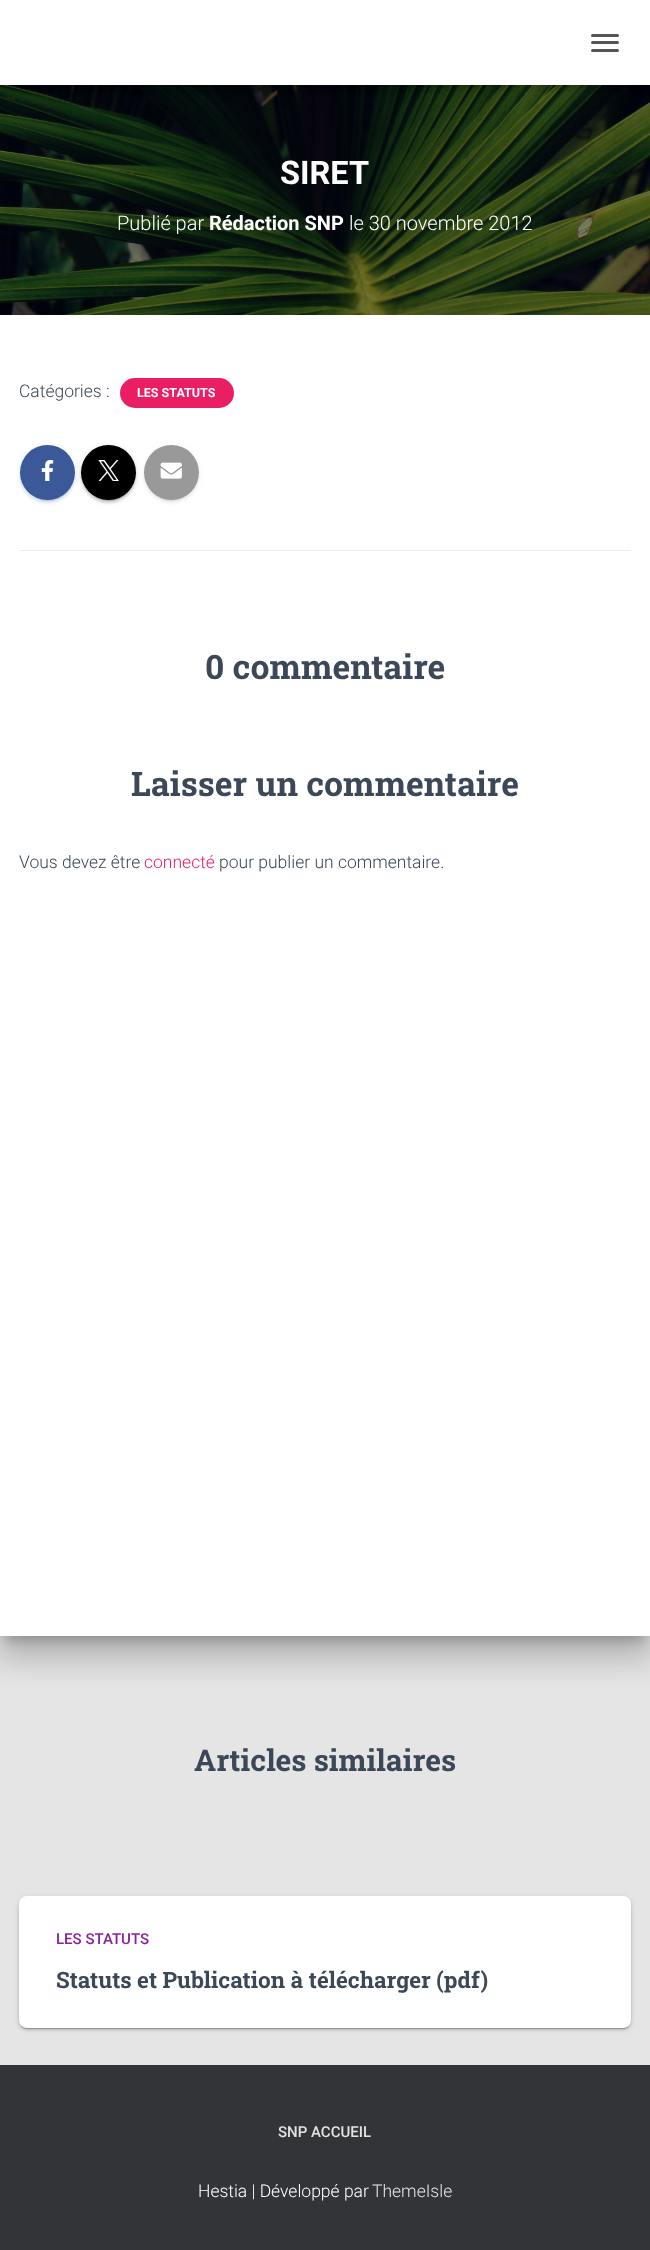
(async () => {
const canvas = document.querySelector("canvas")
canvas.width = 650
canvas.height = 2250
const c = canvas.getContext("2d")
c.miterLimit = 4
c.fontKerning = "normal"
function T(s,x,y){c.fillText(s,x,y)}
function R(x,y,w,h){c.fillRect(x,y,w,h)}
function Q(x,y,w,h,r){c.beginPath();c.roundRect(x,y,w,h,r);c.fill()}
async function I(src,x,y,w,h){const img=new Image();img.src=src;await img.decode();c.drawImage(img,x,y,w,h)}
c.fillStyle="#e5e5e5"
R(0,0,650,2250)
await I("1.png",0,85,650,230)
c.fillStyle="#0000001a"
c.filter="blur(3px)"
c.beginPath()
c.rect(3,8,645,80)
c.fill()
c.filter="none"
c.fillStyle="#0000001f"
c.filter="blur(6px)"
c.beginPath()
c.rect(0,1,650,85)
c.fill()
c.filter="none"
c.fillStyle="#0000006b"
c.filter="blur(6px)"
c.beginPath()
c.rect(8,9,635,70)
c.fill()
c.filter="none"
c.fillStyle="#fff"
R(0,0,650,85)
c.fillStyle="#555"
Q(591,34,28,3,1.5)
Q(591,41,28,3,1.5)
Q(591,49,28,3,1.5)
c.font="bold 32.5px Roboto"
c.fillStyle="#fff"
T("SIRET",280,184)
c.font="300 20px Roboto"
T("Publié par",117,230)
c.font="bold 20px Roboto"
T("Rédaction SNP",209,230)
c.font="300 20px Roboto"
T("le 30 novembre 2012",349,230)
c.fillStyle="#00000033"
c.filter="blur(6px)"
c.beginPath()
c.rect(6,331,638,1309)
c.fill()
c.filter="none"
c.fillStyle="#0000001f"
c.filter="blur(19px)"
c.beginPath()
c.rect(-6,316,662,1334)
c.fill()
c.filter="none"
c.fillStyle="#00000024"
c.filter="blur(15px)"
c.beginPath()
c.rect(-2,333,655,1326)
c.fill()
c.filter="none"
c.fillStyle="#fff"
R(0,315,650,1321)
c.font="300 17.5px Roboto"
c.fillStyle="#3c4858"
T("Catégories :",19,397)
c.fillStyle="#e91e63"
Q(120,378,114,30,15)
c.font="bold 12.5px Roboto"
c.fillStyle="#fff"
T("LES STATUTS",137,397)
c.fillStyle="#3b59981f"
c.filter="blur(3px)"
c.beginPath()
c.roundRect(20,446,55,55,27.5)
c.fill()
c.filter="none"
c.fillStyle="#3b599833"
c.filter="blur(0.5px)"
c.beginPath()
c.roundRect(23,451,50,50,25)
c.fill()
c.filter="none"
c.fillStyle="#3b599824"
c.filter="blur(1px)"
c.beginPath()
c.roundRect(20,448,55,55,27.5)
c.fill()
c.filter="none"
c.fillStyle="#3b5998"
c.beginPath()
c.arc(47.5,472.5,27.5,0,7)
c.fill()
await I("2.png",41,460,13,21)
c.fillStyle="#0000001f"
c.filter="blur(3px)"
c.beginPath()
c.roundRect(81,446,55,55,27.5)
c.fill()
c.filter="none"
c.fillStyle="#00000033"
c.filter="blur(0.5px)"
c.beginPath()
c.roundRect(84,451,50,50,25)
c.fill()
c.filter="none"
c.fillStyle="#00000024"
c.filter="blur(1px)"
c.beginPath()
c.roundRect(81,448,55,55,27.5)
c.fill()
c.filter="none"
c.fillStyle="#000"
c.beginPath()
c.arc(108.5,472.5,27.5,0,7)
c.fill()
await I("3.png",98,460,21,21)
c.fillStyle="#9999991f"
c.filter="blur(3px)"
c.beginPath()
c.roundRect(144,446,55,55,27.5)
c.fill()
c.filter="none"
c.fillStyle="#99999933"
c.filter="blur(0.5px)"
c.beginPath()
c.roundRect(146,451,50,50,25)
c.fill()
c.filter="none"
c.fillStyle="#99999924"
c.filter="blur(1px)"
c.beginPath()
c.roundRect(144,448,55,55,27.5)
c.fill()
c.filter="none"
c.fillStyle="#999"
c.beginPath()
c.arc(171.5,472.5,27.5,0,7)
c.fill()
await I("4.png",160,462,22,17)
c.fillStyle="#eee"
R(19,550,612,1)
c.font="bold 33.75px Roboto Slab"
c.fillStyle="#3c4858"
T("0 commentaire",205,679)
T("Laisser un commentaire",131,796)
c.font="300 17.5px Roboto"
T("Vous devez être",19,868)
c.fillStyle="#e91e63"
T("connecté",144,868)
c.fillStyle="#3c4858"
T("pour publier un commentaire.",219,868)
c.font="bold 30px Roboto Slab"
T("Articles similaires",194,1771)
c.fillStyle="#0000001f"
c.filter="blur(3px)"
c.beginPath()
c.roundRect(19,1898,612,131,8)
c.fill()
c.filter="none"
c.fillStyle="#00000033"
c.filter="blur(0.5px)"
c.beginPath()
c.roundRect(21,1903,608,126,5)
c.fill()
c.filter="none"
c.fillStyle="#00000024"
c.filter="blur(1px)"
c.beginPath()
c.roundRect(19,1899,612,131,8)
c.fill()
c.filter="none"
c.fillStyle="#fff"
Q(19,1896,612,132,8)
c.font="500 15px Roboto"
c.fillStyle="#89229b"
T("LES STATUTS",56,1944)
c.font="bold 22.5px Roboto Slab"
c.fillStyle="#3c4858"
T("Statuts et Publication à télécharger (pdf)",56,1988)
c.fillStyle="#323437"
R(0,2065,650,185)
c.font="500 15px Roboto"
c.fillStyle="#e2e3e3"
T("SNP ACCUEIL",278,2137)
c.font="300 17.5px Roboto"
c.fillStyle="#fff"
T("Hestia | Développé par",198,2197)
c.fillStyle="#e2e3e3"
T("ThemeIsle",372,2197)
})()
